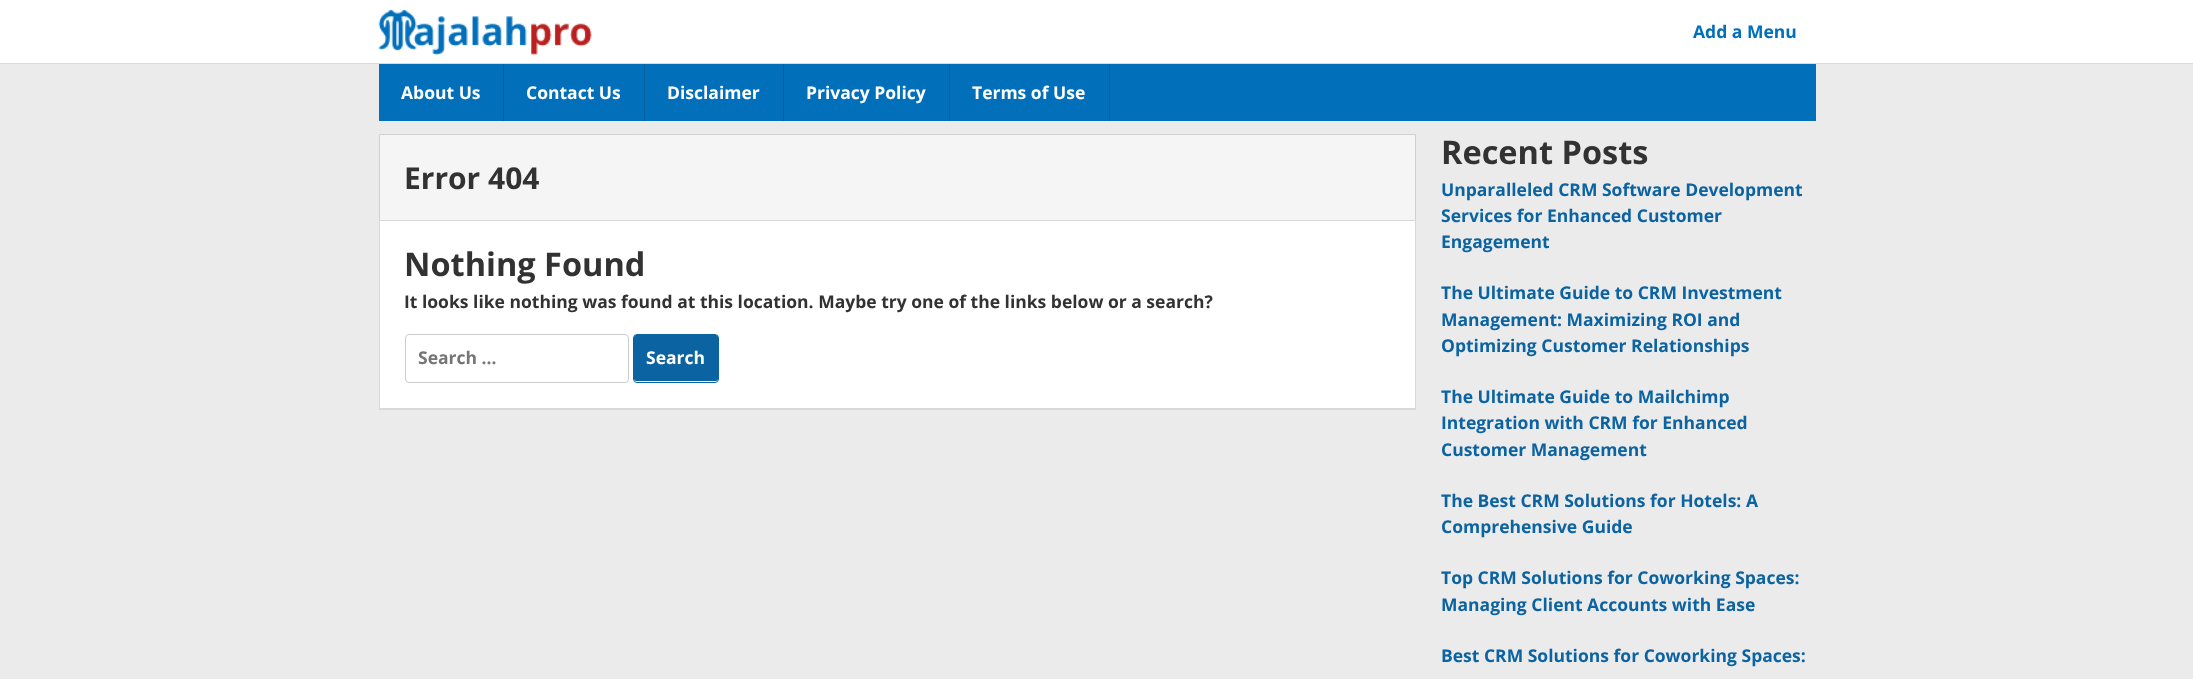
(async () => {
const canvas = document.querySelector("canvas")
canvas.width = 2193
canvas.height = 679
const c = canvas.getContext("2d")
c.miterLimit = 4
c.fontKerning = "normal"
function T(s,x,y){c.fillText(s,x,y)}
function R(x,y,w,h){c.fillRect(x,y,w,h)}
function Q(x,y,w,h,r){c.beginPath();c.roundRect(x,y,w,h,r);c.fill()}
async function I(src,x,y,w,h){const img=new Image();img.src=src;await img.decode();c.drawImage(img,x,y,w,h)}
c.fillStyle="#ebebeb"
R(0,0,2193,679)
c.fillStyle="#fff"
R(0,0,2193,63)
c.fillStyle="#d9d9d9"
R(0,63,2193,1)
await I("1.png",378,9,214,46)
c.font="bold 17.5px Open Sans"
c.fillStyle="#016fba"
T("Add a Menu",1693,38)
R(379,64,1437,57)
c.fillStyle="#015e9e"
R(503,64,1,57)
c.fillStyle="#fff"
T("About Us",401,99)
c.fillStyle="#015e9e"
R(644,64,1,57)
c.fillStyle="#fff"
T("Contact Us",526,99)
c.fillStyle="#015e9e"
R(783,64,1,57)
c.fillStyle="#fff"
T("Disclaimer",667,99)
c.fillStyle="#015e9e"
R(949,64,1,57)
c.fillStyle="#fff"
T("Privacy Policy",806,99)
c.fillStyle="#015e9e"
R(1109,64,1,57)
c.fillStyle="#fff"
T("Terms of Use",972,99)
c.fillStyle="#f5f5f5"
c.beginPath()
c.rect(379.5,134.5,1036,86)
c.fill()
c.strokeStyle="#d0d0d0"
c.stroke()
c.font="bold 30px Open Sans"
c.fillStyle="#323233"
T("Error 404",404,189)
c.fillStyle="#fff"
R(380,221,1035,187)
c.strokeStyle="#d9d9d9"
c.strokeRect(379.5,220.5,1036,189)
c.fillStyle="#d9d9d9"
R(380,408,1035,1)
c.font="bold 32.5px Open Sans"
c.fillStyle="#323233"
T("Nothing Found",404,276)
c.font="bold 17.5px Open Sans"
T("It looks like nothing was found at this location. Maybe try one of the links below or a search?",404,308)
c.beginPath()
c.roundRect(405.5,334.5,223,48,3.5)
c.strokeStyle="#ccc"
c.stroke()
c.fillStyle="#757575"
T("Search …",418,364)
c.fillStyle="#0b63a1"
Q(634,335,84,46,2.5)
c.beginPath()
c.roundRect(633.5,334.5,85,48,3.5)
c.strokeStyle="#0b63a1"
c.stroke()
c.fillStyle="#fff"
T("Search",646,364)
c.font="bold 32.5px Open Sans"
c.fillStyle="#323233"
T("Recent Posts",1441,164)
c.font="bold 17.5px Open Sans"
c.fillStyle="#0b63a1"
T("Unparalleled CRM Software Development",1441,196)
T("Services for Enhanced Customer",1441,222)
T("Engagement",1441,248)
T("The Ultimate Guide to CRM Investment",1441,299)
T("Management: Maximizing ROI and",1441,326)
T("Optimizing Customer Relationships",1441,352)
T("The Ultimate Guide to Mailchimp",1441,403)
T("Integration with CRM for Enhanced",1441,429)
T("Customer Management",1441,456)
T("The Best CRM Solutions for Hotels: A",1441,507)
T("Comprehensive Guide",1441,533)
T("Top CRM Solutions for Coworking Spaces:",1441,584)
T("Managing Client Accounts with Ease",1441,611)
T("Best CRM Solutions for Coworking Spaces:",1441,662)
})()
